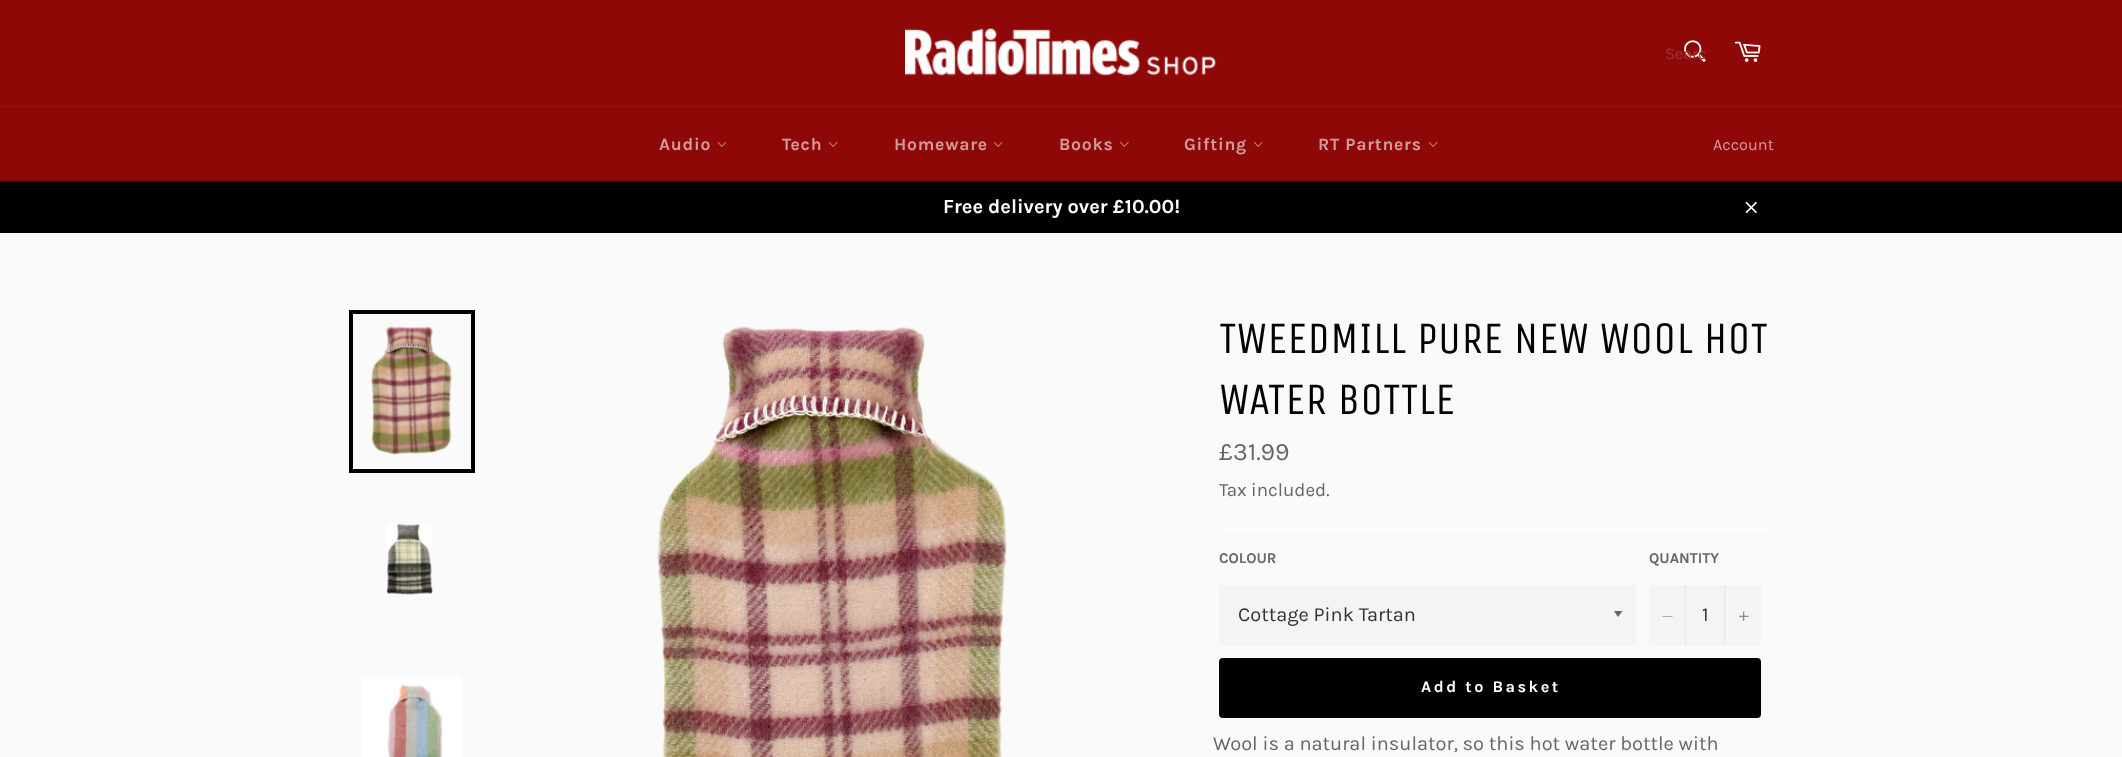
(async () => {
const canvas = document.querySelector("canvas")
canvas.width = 2122
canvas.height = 757
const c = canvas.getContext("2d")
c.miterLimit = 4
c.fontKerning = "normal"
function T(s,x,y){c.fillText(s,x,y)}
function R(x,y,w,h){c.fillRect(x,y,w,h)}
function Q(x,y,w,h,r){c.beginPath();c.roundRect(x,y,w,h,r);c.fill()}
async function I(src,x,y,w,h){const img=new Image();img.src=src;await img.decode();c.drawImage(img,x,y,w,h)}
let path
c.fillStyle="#8f0808"
R(0,0,2122,757)
await I("1.png",905,28,312,48)
await I("2.png",1684,40,22,22)
c.save()
c.beginPath()
c.rect(1665,44,40,19)
c.clip()
c.font="16.25px Karla"
c.fillStyle="#a23333"
T("Searc",1665,59)
c.restore()
await I("3.png",1734,41,27,21)
c.fillStyle="#a70909"
R(0,106,2122,1)
c.letterSpacing="0.75px"
c.font="bold 17.5px Karla"
c.fillStyle="#d29c9c"
T("Audio",659,150)
await I("4.png",717,141,10,6)
T("Tech",782,150)
await I("5.png",828,141,10,6)
T("Homeware",894,150)
await I("5.png",993,141,10,6)
T("Books",1059,150)
await I("6.png",1120,141,9,6)
T("Gifting",1184,150)
await I("5.png",1253,141,10,6)
T("RT Partners",1318,150)
await I("5.png",1428,141,10,6)
c.letterSpacing="0px"
c.font="16.25px Karla"
T("Account",1713,150)
c.fillStyle="#000"
R(0,181,2122,52)
c.font="bold 20px Karla"
c.fillStyle="#fff"
T("Free delivery over £10.00!",943,213)
await I("7.png",1745,201,12,13)
c.fillStyle="#fafafa"
R(0,233,2122,524)
await I("8.png",371,326,81,129)
c.strokeStyle="#000"
c.lineWidth=4
c.strokeRect(351,312,122,159)
await I("9.png",386,523,47,72)
await I("10.png",361,676,101,81)
await I("11.png",657,326,350,431)
c.font="45px Unica One"
c.fillStyle="#030303"
T("TWEEDMILL PURE NEW WOOL HOT",1219,353)
T("WATER BOTTLE",1219,414)
c.font="25px Karla"
c.fillStyle="#666"
T("£31.99",1219,460)
c.font="18.75px Karla"
T("Tax included.",1219,496)
c.fillStyle="#fff"
R(1219,528,555,1)
c.font="bold 15px Karla"
c.fillStyle="#666"
T("COLOUR",1219,563)
c.fillStyle="#f4f4f4"
R(1219,585,417,60)
c.fillStyle="#666"
path = new Path2D("M1614 611l4 6l4.5-6z")
c.fill(path)
c.font="20px Karla"
c.fillStyle="#333"
T("Cottage Pink Tartan",1238,621)
c.font="bold 15px Karla"
c.fillStyle="#666"
T("QUANTITY",1649,563)
c.fillStyle="#f4f4f4"
R(1649,585,112,60)
c.fillStyle="#e7e7e7"
R(1685,585,1,60)
c.fillStyle="#666"
path = new Path2D("M1672.5 616v.5h-10v-.5z")
c.fill(path,"evenodd")
c.font="20px Karla"
c.fillStyle="#333"
T("1",1702,621)
c.fillStyle="#e7e7e7"
R(1724,585,1,60)
await I("12.png",1739,611,10,10)
c.fillStyle="#000"
Q(1219,658,542,60,4)
c.letterSpacing="2.5px"
c.font="bold 16.25px Karla"
c.fillStyle="#fff"
T("Add to Basket",1421,692)
c.letterSpacing="0px"
c.font="20px Karla"
c.fillStyle="#666"
T("Wool is a natural insulator, so this hot water bottle with",1213,750)
})()
